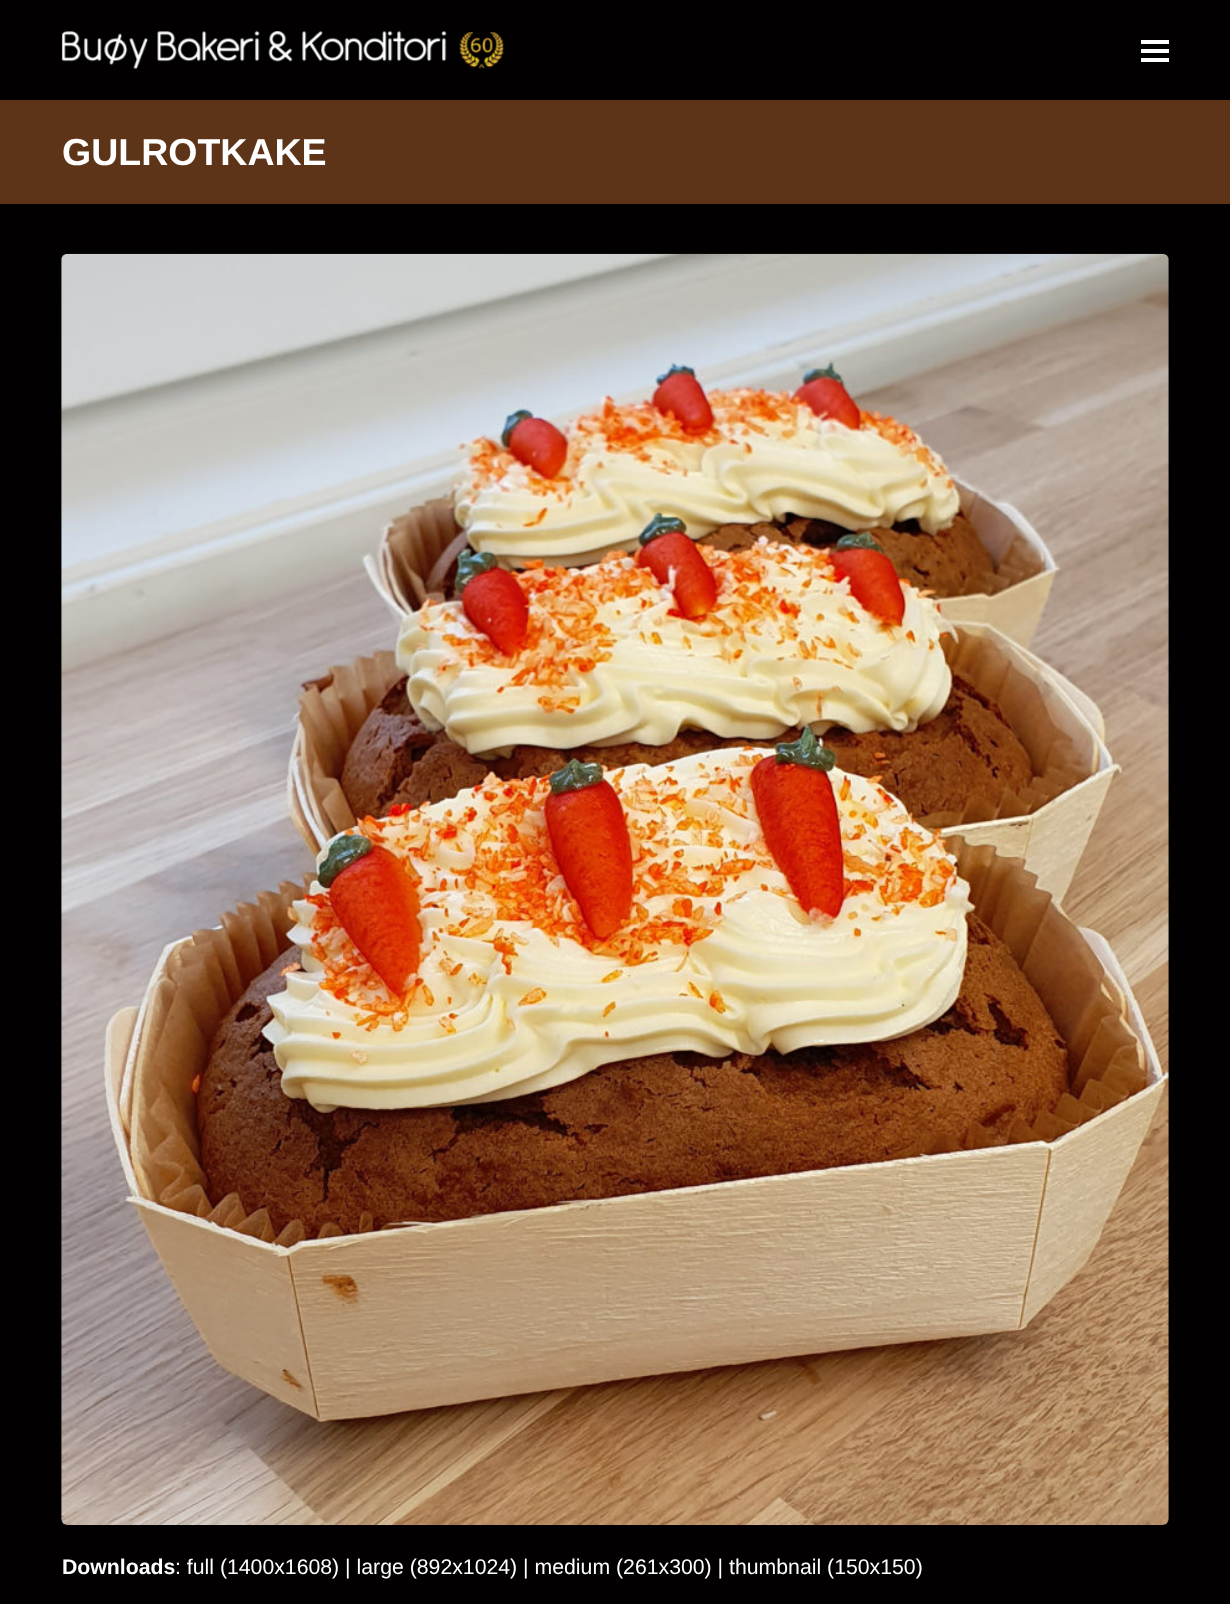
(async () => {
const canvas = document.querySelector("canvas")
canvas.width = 1230
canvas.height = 1604
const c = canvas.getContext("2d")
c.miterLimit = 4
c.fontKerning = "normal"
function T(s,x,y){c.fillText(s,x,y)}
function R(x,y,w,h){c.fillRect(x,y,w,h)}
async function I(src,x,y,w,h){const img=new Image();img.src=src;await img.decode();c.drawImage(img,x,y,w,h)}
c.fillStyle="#020000"
R(0,0,1230,1604)
await I("1.png",61,31,443,39)
c.fillStyle="#fff"
R(1141,49,28,4)
R(1141,40,28,4)
R(1141,58,28,4)
c.fillStyle="#5e3418"
R(0,100,1230,104)
c.font="bold 37.5px Liberation Sans"
c.fillStyle="#fff"
T("GULROTKAKE",62,165)
await I("2.png",61,253,1108,1272)
c.font="bold 21.25px Liberation Sans"
T("Downloads",62,1574)
c.font="21.25px Liberation Sans"
T(": full (1400x1608) | large (892x1024) | medium (261x300) | thumbnail (150x150)",175,1574)
})()
